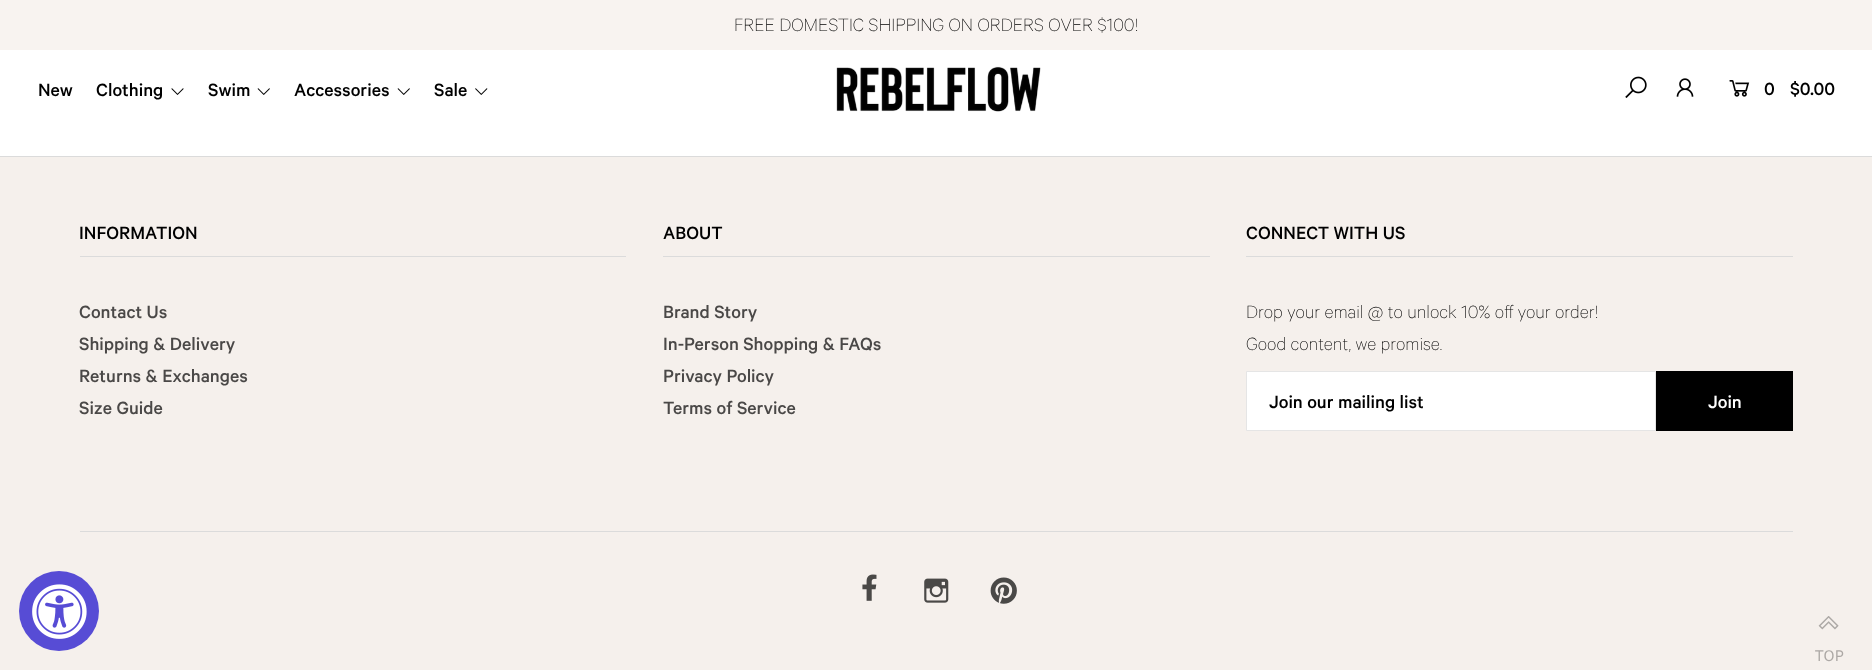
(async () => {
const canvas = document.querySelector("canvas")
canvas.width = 1872
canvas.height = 670
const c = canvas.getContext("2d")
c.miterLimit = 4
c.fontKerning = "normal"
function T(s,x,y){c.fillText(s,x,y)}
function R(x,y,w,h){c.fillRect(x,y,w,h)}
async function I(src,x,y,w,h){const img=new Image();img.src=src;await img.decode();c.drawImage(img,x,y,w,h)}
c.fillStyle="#fff"
R(0,0,1872,670)
c.fillStyle="#f8f3f0"
R(0,0,1872,50)
c.font="100 20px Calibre"
c.fillStyle="#000"
T("FREE DOMESTIC SHIPPING ON ORDERS OVER $100!",734,31)
c.font="500 20px Calibre"
T("New",38,96)
T("Clothing",96,96)
await I("1.png",171,88,13,7)
T("Swim",208,96)
await I("2.png",257,88,13,7)
T("Accessories",294,96)
await I("2.png",397,88,13,7)
T("Sale",434,96)
await I("3.png",475,88,13,7)
await I("4.png",836,66,205,46)
await I("5.png",1625,76,22,22)
await I("6.png",1676,78,18,19)
await I("7.png",1729,80,21,17)
T("0",1764,95)
T("$0.00",1790,95)
c.fillStyle="#f5f0ec"
R(0,157,1872,513)
c.fillStyle="#dbdbdb"
R(0,156,1872,1)
R(80,256,546,1)
c.fillStyle="#000"
T("INFORMATION",79,239)
c.fillStyle="#4a4847"
T("Contact Us",79,318)
T("Shipping & Delivery",79,350)
T("Returns & Exchanges",79,382)
T("Size Guide",79,414)
c.fillStyle="#dbdbdb"
R(663,256,547,1)
c.fillStyle="#000"
T("ABOUT",663,239)
c.fillStyle="#4a4847"
T("Brand Story",663,318)
T("In-Person Shopping & FAQs",663,350)
T("Privacy Policy",663,382)
T("Terms of Service",663,414)
c.fillStyle="#dbdbdb"
R(1246,256,547,1)
c.fillStyle="#000"
T("CONNECT WITH US",1246,239)
c.font="100 20px Calibre"
T("Drop your email @ to unlock 10% off your order!",1246,318)
T("Good content, we promise.",1246,350)
c.fillStyle="#fff"
c.beginPath()
c.rect(1246.5,371.5,409,59)
c.fill()
c.strokeStyle="#e5e5e5"
c.stroke()
c.font="500 20px Calibre"
c.fillStyle="#000"
T("Join our mailing list",1269,408)
R(1656,371,137,60)
c.fillStyle="#fff"
T("Join",1708,408)
c.fillStyle="#dbdbdb"
R(80,531,1713,1)
await I("8.png",862,574,15,27)
await I("9.png",924,578,25,25)
await I("10.png",990,577,27,27)
c.fillStyle="#574cd5"
c.beginPath()
c.arc(59,611,40,0,7)
c.fill()
await I("11.png",32,584,55,55)
await I("12.png",1818,616,21,14)
c.font="17px Karla"
c.fillStyle="#aca8a5"
T("TOP",1815,661)
})()
